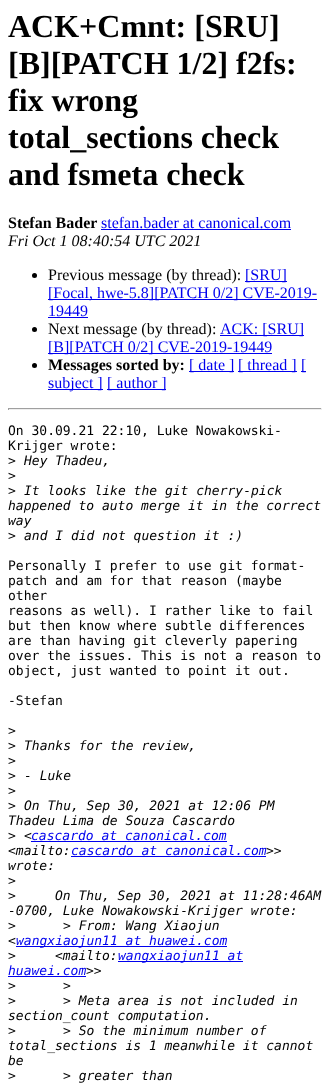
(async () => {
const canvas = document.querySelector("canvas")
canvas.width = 330
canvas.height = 1090
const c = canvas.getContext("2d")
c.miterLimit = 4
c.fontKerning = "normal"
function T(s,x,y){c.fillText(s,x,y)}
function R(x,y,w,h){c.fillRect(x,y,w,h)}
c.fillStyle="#fff"
R(0,0,330,1090)
c.font="bold 32px Liberation Serif"
c.fillStyle="#000"
T("ACK+Cmnt: [SRU]",8,37)
T("[B][PATCH 1/2] f2fs:",8,74)
T("fix wrong",8,111)
T("total_sections check",8,148)
T("and fsmeta check",8,185)
c.font="bold 16px Liberation Serif"
T("Stefan Bader",8,228)
c.font="16px Liberation Serif"
c.fillStyle="#00e"
T("stefan.bader at canonical.com",101,228)
R(101,229,190,1)
c.font="italic 16px Liberation Serif"
c.fillStyle="#000"
T("Fri Oct 1 08:40:54 UTC 2021",8,246)
c.beginPath()
c.arc(34.5,275.5,2.5,0,7)
c.fill()
c.font="16px Liberation Serif"
T("Previous message (by thread):",48,280)
c.fillStyle="#00e"
R(245,281,42,1)
T("[SRU]",245,280)
R(48,299,269,1)
T("[Focal, hwe-5.8][PATCH 0/2] CVE-2019-",48,298)
T("19449",48,316)
R(48,317,40,1)
c.fillStyle="#000"
c.beginPath()
c.arc(34.5,329.5,2.5,0,7)
c.fill()
T("Next message (by thread):",48,334)
c.fillStyle="#00e"
R(220,335,84,1)
T("ACK: [SRU]",220,334)
R(48,353,224,1)
T("[B][PATCH 0/2] CVE-2019-19449",48,352)
c.fillStyle="#000"
c.beginPath()
c.arc(34.5,365.5,2.5,0,7)
c.fill()
c.font="bold 16px Liberation Serif"
T("Messages sorted by:",48,370)
c.fillStyle="#00e"
R(189,371,45,1)
c.font="16px Liberation Serif"
T("[ date ]",189,370)
R(238,371,59,1)
T("[ thread ]",238,370)
R(301,371,5,1)
T("[",301,370)
R(48,389,55,1)
T("subject ]",48,388)
R(107,389,59,1)
T("[ author ]",107,388)
c.fillStyle="#9f9f9f"
R(8,408,314,1)
c.fillStyle="#eee"
R(321,408,1,2)
R(8,409,314,1)
c.fillStyle="#9f9f9f"
R(8,408,1,2)
c.font="13px DejaVu Sans Mono"
c.fillStyle="#000"
T("On 30.09.21 22:10, Luke Nowakowski-",8,435)
T("Krijger wrote:",8,450)
T(">",8,465)
c.font="italic 13px DejaVu Sans Mono"
T("Hey Thadeu,",24,465)
c.font="13px DejaVu Sans Mono"
T(">",8,480)
T(">",8,495)
c.font="italic 13px DejaVu Sans Mono"
T("It looks like the git cherry-pick",24,495)
T("happened to auto merge it in the correct",8,510)
T("way",8,525)
c.font="13px DejaVu Sans Mono"
T(">",8,540)
c.font="italic 13px DejaVu Sans Mono"
T("and I did not question it :)",24,540)
c.font="13px DejaVu Sans Mono"
T("Personally I prefer to use git format-",8,570)
T("patch and am for that reason (maybe",8,585)
T("other",8,600)
T("reasons as well). I rather like to fail",8,615)
T("but then know where subtle differences",8,630)
T("are than having git cleverly papering",8,645)
T("over the issues. This is not a reason to",8,660)
T("object, just wanted to point it out.",8,675)
T("-Stefan",8,705)
T(">",8,735)
T(">",8,750)
c.font="italic 13px DejaVu Sans Mono"
T("Thanks for the review,",24,750)
c.font="13px DejaVu Sans Mono"
T(">",8,765)
T(">",8,780)
c.font="italic 13px DejaVu Sans Mono"
T("- Luke",24,780)
c.font="13px DejaVu Sans Mono"
T(">",8,795)
T(">",8,810)
c.font="italic 13px DejaVu Sans Mono"
T("On Thu, Sep 30, 2021 at 12:06 PM",24,810)
T("Thadeu Lima de Souza Cascardo",8,825)
c.font="13px DejaVu Sans Mono"
T(">",8,840)
c.font="italic 13px DejaVu Sans Mono"
T("<",24,840)
c.fillStyle="#00e"
R(31,841,196,1)
T("cascardo at canonical.com",31,840)
c.fillStyle="#000"
T("<mailto:",8,855)
c.fillStyle="#00e"
T("cascardo at canonical.com",71,855)
c.fillStyle="#000"
T(">>",266,855)
c.fillStyle="#00e"
R(71,856,195,1)
c.fillStyle="#000"
T("wrote:",8,870)
c.font="13px DejaVu Sans Mono"
T(">",8,885)
T(">",8,900)
c.font="italic 13px DejaVu Sans Mono"
T("On Thu, Sep 30, 2021 at 11:28:46AM",55,900)
T("-0700, Luke Nowakowski-Krijger wrote:",8,915)
c.font="13px DejaVu Sans Mono"
T(">",8,930)
c.font="italic 13px DejaVu Sans Mono"
T("> From: Wang Xiaojun",63,930)
T("<",8,945)
c.fillStyle="#00e"
R(16,946,211,1)
T("wangxiaojun11 at huawei.com",16,945)
c.font="13px DejaVu Sans Mono"
c.fillStyle="#000"
T(">",8,960)
c.font="italic 13px DejaVu Sans Mono"
T("<mailto:",55,960)
c.fillStyle="#00e"
R(118,961,125,1)
T("wangxiaojun11 at",118,960)
T("huawei.com",8,975)
c.fillStyle="#000"
T(">>",86,975)
c.fillStyle="#00e"
R(8,976,78,1)
c.font="13px DejaVu Sans Mono"
c.fillStyle="#000"
T(">",8,990)
c.font="italic 13px DejaVu Sans Mono"
T(">",63,990)
c.font="13px DejaVu Sans Mono"
T(">",8,1005)
c.font="italic 13px DejaVu Sans Mono"
T("> Meta area is not included in",63,1005)
T("section_count computation.",8,1020)
c.font="13px DejaVu Sans Mono"
T(">",8,1035)
c.font="italic 13px DejaVu Sans Mono"
T("> So the minimum number of",63,1035)
T("total_sections is 1 meanwhile it cannot",8,1050)
T("be",8,1065)
c.font="13px DejaVu Sans Mono"
T(">",8,1080)
c.font="italic 13px DejaVu Sans Mono"
T("> greater than",63,1080)
})()
